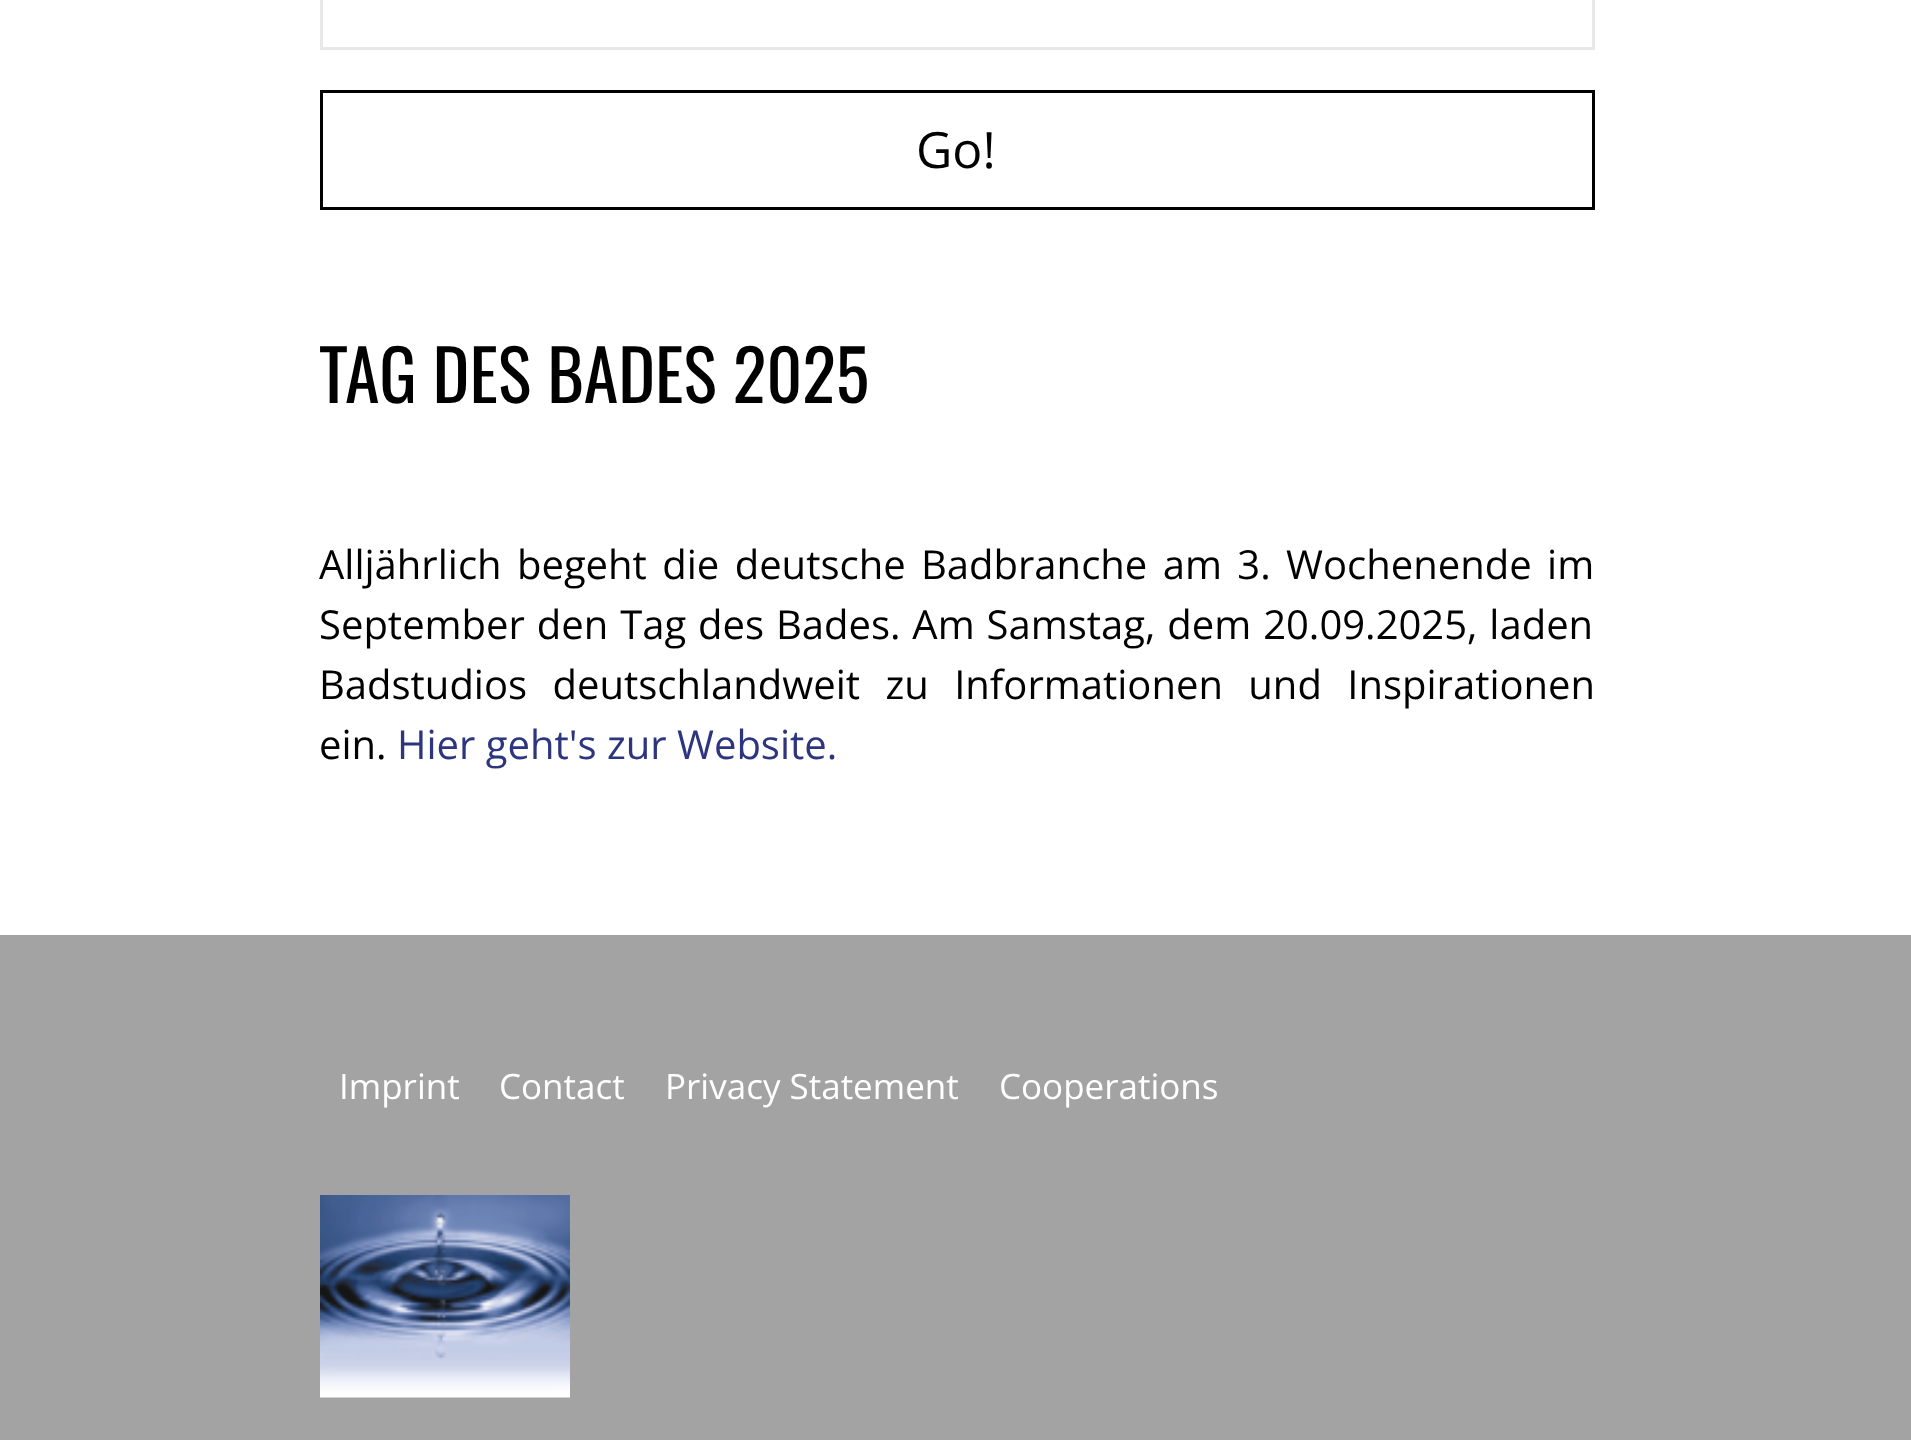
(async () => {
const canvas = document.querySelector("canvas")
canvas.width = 1911
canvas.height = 1440
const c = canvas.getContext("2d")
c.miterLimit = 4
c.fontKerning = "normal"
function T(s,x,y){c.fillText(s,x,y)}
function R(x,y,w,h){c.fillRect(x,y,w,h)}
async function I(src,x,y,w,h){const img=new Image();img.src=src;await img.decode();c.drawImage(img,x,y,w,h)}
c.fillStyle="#fff"
R(0,0,1911,1440)
c.strokeStyle="#e8e8e8"
c.lineWidth=3
c.strokeRect(321.5,-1.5,1272,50)
c.strokeStyle="#000"
c.strokeRect(321.5,91.5,1272,117)
c.font="50px Open Sans"
c.fillStyle="#000"
T("Go!",916,168)
c.font="70px Oswald"
T("TAG DES BADES 2025",319,403)
c.wordSpacing="5px"
c.font="40px Open Sans"
T("Alljährlich begeht die deutsche Badbranche am 3. Wochenende im",319,579)
c.wordSpacing="1.5px"
T("September den Tag des Bades. Am Samstag, dem 20.09.2025, laden",319,639)
c.wordSpacing="15px"
T("Badstudios deutschlandweit zu Informationen und Inspirationen",319,699)
c.wordSpacing="0px"
T("ein.",319,759)
c.fillStyle="#2d357f"
T("Hier geht's zur Website.",397,759)
c.fillStyle="#a3a3a3"
R(0,935,1911,505)
c.font="35px Open Sans"
c.fillStyle="#fff"
T("Imprint",339,1099)
T("Contact",499,1099)
T("Privacy Statement",665,1099)
T("Cooperations",999,1099)
await I("1.png",320,1195,250,203)
})()
